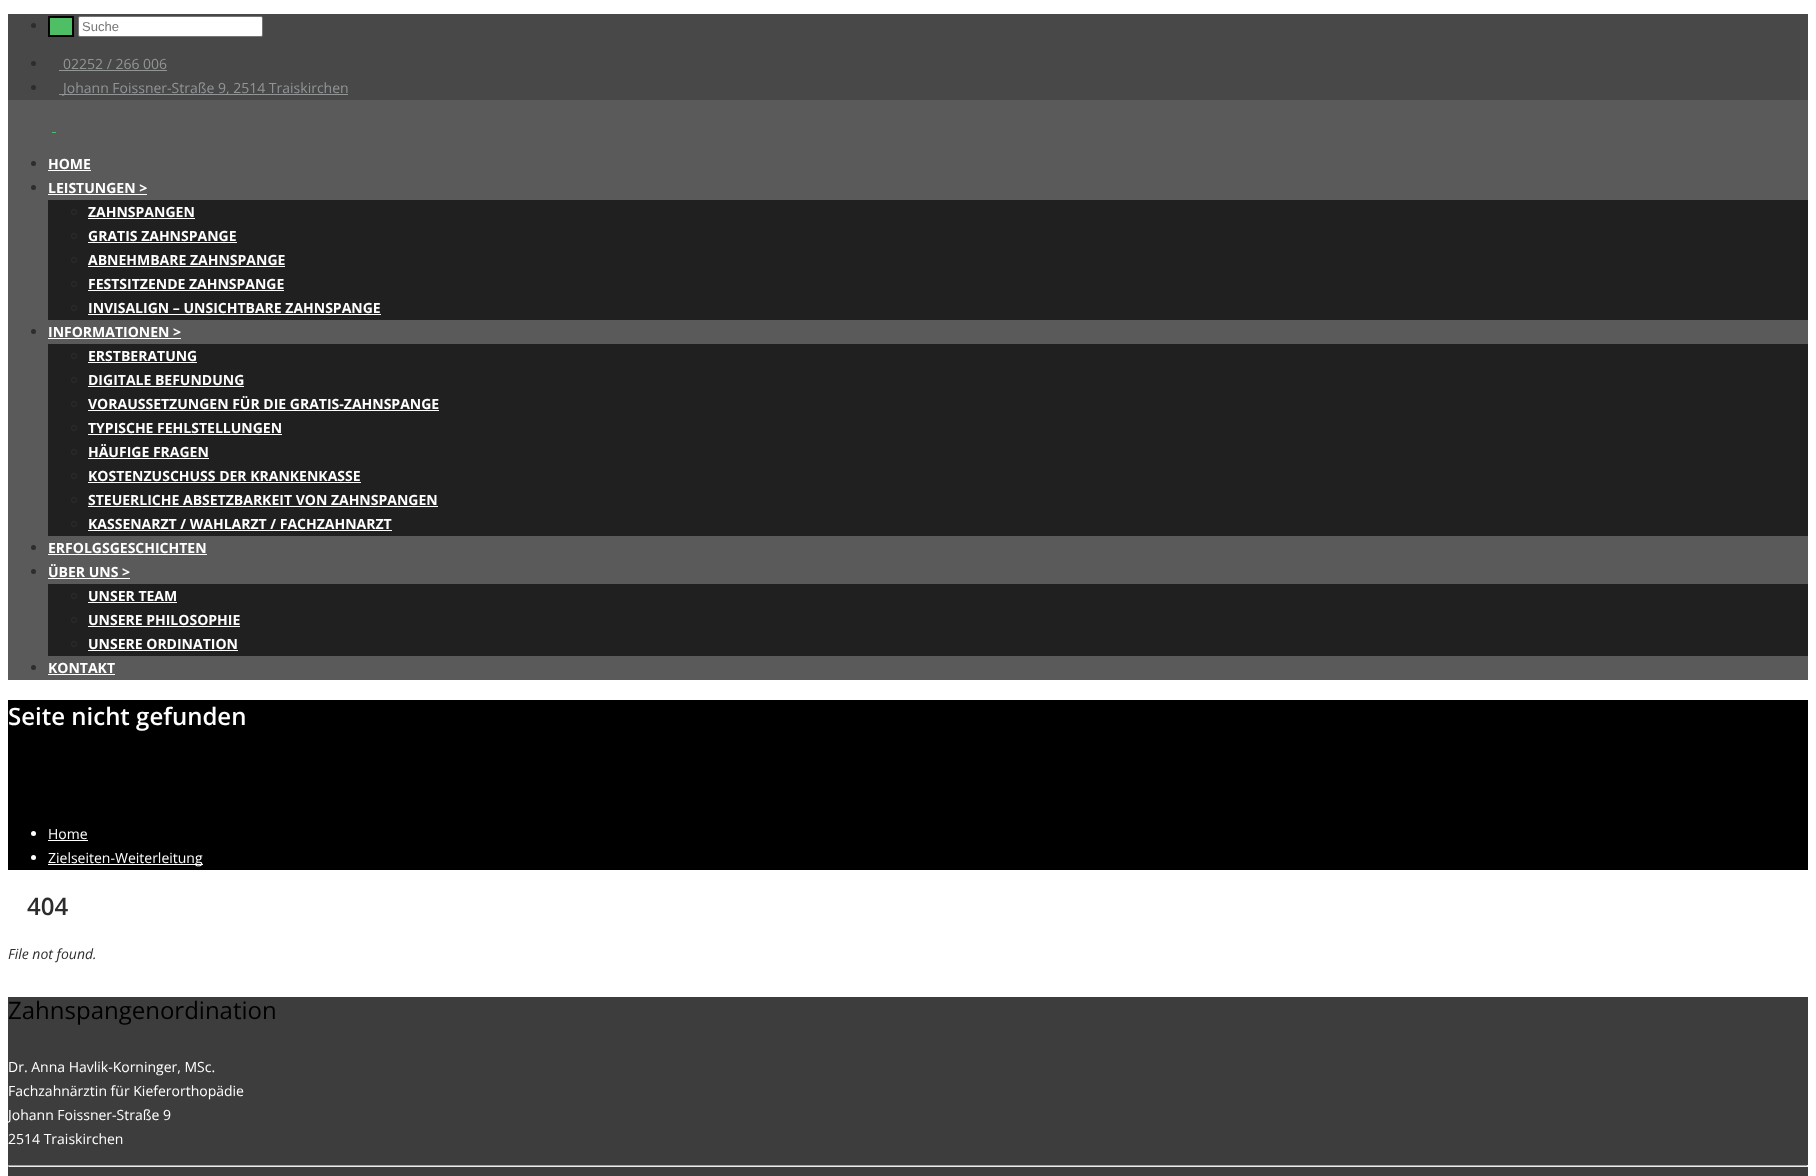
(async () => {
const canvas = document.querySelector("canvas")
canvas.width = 1816
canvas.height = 1176
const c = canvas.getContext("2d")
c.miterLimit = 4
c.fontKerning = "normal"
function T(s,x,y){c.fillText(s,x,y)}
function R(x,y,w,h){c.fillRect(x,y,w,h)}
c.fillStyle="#fff"
R(0,0,1816,1176)
c.fillStyle="#5a5a5a"
R(8,100,1800,580)
c.fillStyle="#484848"
R(8,14,1800,86)
c.fillStyle="#2d2d2d"
c.beginPath()
c.arc(33.5,25.5,2.5,0,7)
c.fill()
c.fillStyle="#4ebf64"
c.beginPath()
c.rect(49,17,24,19)
c.fill()
c.strokeStyle="#000"
c.lineWidth=2
c.stroke()
c.fillStyle="#fff"
c.beginPath()
c.roundRect(78.5,16.5,184,20,1.5)
c.fill()
c.strokeStyle="#767676"
c.lineWidth=1
c.stroke()
c.font="13px Liberation Sans"
c.fillStyle="#757575"
T("Suche",82,31)
c.fillStyle="#2d2d2d"
c.beginPath()
c.arc(33.5,63.5,2.5,0,7)
c.fill()
c.font="14px Open Sans"
c.fillStyle="#929596"
T("02252 / 266 006",63,69)
R(59,70,108,1)
c.fillStyle="#2d2d2d"
c.beginPath()
c.arc(33.5,87.5,2.5,0,7)
c.fill()
c.fillStyle="#929596"
R(59,94,289,1)
T("Johann Foissner-Straße 9, 2514 Traiskirchen",63,93)
c.fillStyle="#4ebf64"
R(52,132,4,1)
c.fillStyle="#2d2d2d"
c.beginPath()
c.arc(33.5,163.5,2.5,0,7)
c.fill()
c.font="bold 14px Open Sans"
c.fillStyle="#fff"
T("HOME",48,169)
R(48,170,43,1)
c.fillStyle="#2d2d2d"
c.beginPath()
c.arc(33.5,187.5,2.5,0,7)
c.fill()
c.fillStyle="#fff"
T("LEISTUNGEN >",48,193)
R(48,194,99,1)
c.fillStyle="#202020"
R(48,200,1760,120)
c.beginPath()
c.arc(74,212,2.5,0,7)
c.strokeStyle="#2d2d2d"
c.stroke()
c.fillStyle="#fff"
T("ZAHNSPANGEN",88,217)
R(88,218,107,1)
c.beginPath()
c.arc(74,236,2.5,0,7)
c.stroke()
T("GRATIS ZAHNSPANGE",88,241)
R(88,242,149,1)
c.beginPath()
c.arc(74,260,2.5,0,7)
c.stroke()
T("ABNEHMBARE ZAHNSPANGE",88,265)
R(88,266,197,1)
c.beginPath()
c.arc(74,284,2.5,0,7)
c.stroke()
T("FESTSITZENDE ZAHNSPANGE",88,289)
R(88,290,196,1)
c.beginPath()
c.arc(74,308,2.5,0,7)
c.stroke()
T("INVISALIGN – UNSICHTBARE ZAHNSPANGE",88,313)
R(88,314,293,1)
c.fillStyle="#2d2d2d"
c.beginPath()
c.arc(33.5,331.5,2.5,0,7)
c.fill()
c.fillStyle="#fff"
T("INFORMATIONEN >",48,337)
R(48,338,133,1)
c.fillStyle="#202020"
R(48,344,1760,192)
c.beginPath()
c.arc(74,356,2.5,0,7)
c.stroke()
c.fillStyle="#fff"
T("ERSTBERATUNG",88,361)
R(88,362,109,1)
c.beginPath()
c.arc(74,380,2.5,0,7)
c.stroke()
T("DIGITALE BEFUNDUNG",88,385)
R(88,386,156,1)
c.beginPath()
c.arc(74,404,2.5,0,7)
c.stroke()
T("VORAUSSETZUNGEN FÜR DIE GRATIS-ZAHNSPANGE",88,409)
R(88,410,351,1)
c.beginPath()
c.arc(74,428,2.5,0,7)
c.stroke()
T("TYPISCHE FEHLSTELLUNGEN",88,433)
R(88,434,194,1)
c.beginPath()
c.arc(74,452,2.5,0,7)
c.stroke()
T("HÄUFIGE FRAGEN",88,457)
R(88,458,121,1)
c.beginPath()
c.arc(74,476,2.5,0,7)
c.stroke()
T("KOSTENZUSCHUSS DER KRANKENKASSE",88,481)
R(88,482,273,1)
c.beginPath()
c.arc(74,500,2.5,0,7)
c.stroke()
T("STEUERLICHE ABSETZBARKEIT VON ZAHNSPANGEN",88,505)
R(88,506,350,1)
c.beginPath()
c.arc(74,524,2.5,0,7)
c.stroke()
T("KASSENARZT / WAHLARZT / FACHZAHNARZT",88,529)
R(88,530,304,1)
c.fillStyle="#2d2d2d"
c.beginPath()
c.arc(33.5,547.5,2.5,0,7)
c.fill()
c.fillStyle="#fff"
T("ERFOLGSGESCHICHTEN",48,553)
R(48,554,159,1)
c.fillStyle="#2d2d2d"
c.beginPath()
c.arc(33.5,571.5,2.5,0,7)
c.fill()
c.fillStyle="#fff"
T("ÜBER UNS >",48,577)
R(48,578,82,1)
c.fillStyle="#202020"
R(48,584,1760,72)
c.beginPath()
c.arc(74,596,2.5,0,7)
c.stroke()
c.fillStyle="#fff"
T("UNSER TEAM",88,601)
R(88,602,89,1)
c.beginPath()
c.arc(74,620,2.5,0,7)
c.stroke()
T("UNSERE PHILOSOPHIE",88,625)
R(88,626,152,1)
c.beginPath()
c.arc(74,644,2.5,0,7)
c.stroke()
T("UNSERE ORDINATION",88,649)
R(88,650,150,1)
c.fillStyle="#2d2d2d"
c.beginPath()
c.arc(33.5,667.5,2.5,0,7)
c.fill()
c.fillStyle="#fff"
T("KONTAKT",48,673)
R(48,674,67,1)
c.fillStyle="#000"
R(8,700,1800,170)
c.font="600 24px Open Sans"
c.fillStyle="#fff"
T("Seite nicht gefunden",8,725)
c.beginPath()
c.arc(33.5,833.5,2.5,0,7)
c.fill()
c.font="14px Open Sans"
T("Home",48,839)
R(48,840,40,1)
c.beginPath()
c.arc(33.5,857.5,2.5,0,7)
c.fill()
R(48,864,155,1)
T("Zielseiten-Weiterleitung",48,863)
c.font="600 24px Open Sans"
c.fillStyle="#2d2d2d"
T("404",27,915)
c.font="italic 14px Open Sans"
T("File not found.",8,959)
c.fillStyle="#3d3d3d"
R(8,997,1800,179)
c.font="24px Open Sans"
c.fillStyle="#000"
T("Zahnspangenordination",8,1019)
c.font="14px Open Sans"
c.fillStyle="#fff"
T("Dr. Anna Havlik-Korninger, MSc.",8,1072)
T("Fachzahnärztin für Kieferorthopädie",8,1096)
T("Johann Foissner-Straße 9",8,1120)
T("2514 Traiskirchen",8,1144)
c.fillStyle="#9f9f9f"
R(8,1165,1800,1)
c.fillStyle="#eee"
R(1807,1165,1,2)
R(8,1166,1800,1)
c.fillStyle="#9f9f9f"
R(8,1165,1,2)
})()
